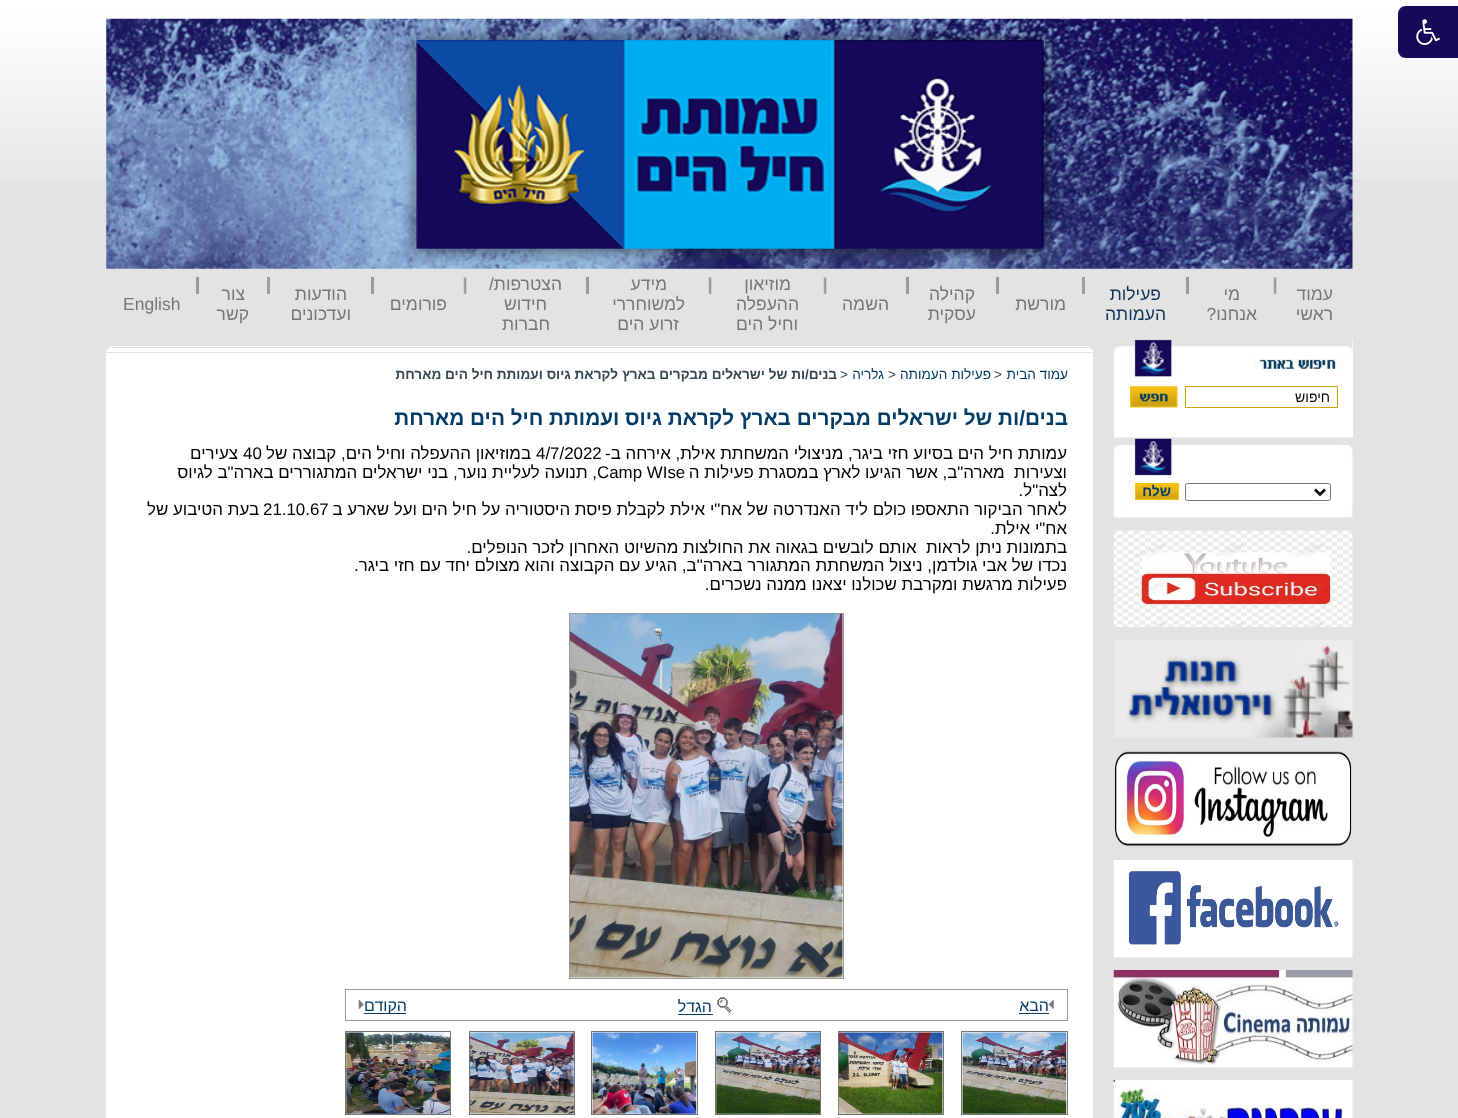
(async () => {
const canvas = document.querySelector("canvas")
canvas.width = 1458
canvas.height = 1118
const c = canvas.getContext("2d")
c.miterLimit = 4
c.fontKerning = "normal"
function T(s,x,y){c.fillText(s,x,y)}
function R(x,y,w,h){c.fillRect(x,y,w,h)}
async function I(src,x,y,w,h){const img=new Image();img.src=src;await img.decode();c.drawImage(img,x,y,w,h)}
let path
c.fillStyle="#e4e3e3"
R(0,0,1458,1118)
await I("1.png",0,0,1458,179)
c.fillStyle="#160959"
path = new Path2D("M1406 6h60v52h-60c-4.5 0-8-3.5-8-8v-36c0-4.5 3.5-8 8-8z")
c.fill(path)
await I("2.png",1416,19,24,26)
await I("3.png",106,18,1247,251)
c.direction="rtl"
c.font="17.5px Liberation Sans"
c.fillStyle="#777676"
T("עמוד",1333,300)
T("ראשי",1333,320)
await I("4.png",1273,277,4,17)
T("מי",1240,300)
T("אנחנו?",1257,320)
c.fillStyle="#9b9a9a"
R(1186,277,3,17)
c.fillStyle="#0f345c"
T("פעילות",1161,300)
T("העמותה",1166,320)
c.fillStyle="#9f9e9e"
R(1082,277,3,17)
c.fillStyle="#777676"
T("מורשת",1066,310)
c.fillStyle="#9b9a9a"
R(996,277,3,17)
c.fillStyle="#777676"
T("קהילה",975,300)
T("עסקית",976,320)
c.fillStyle="#9b9a9a"
R(906,277,3,17)
c.fillStyle="#777676"
T("השמה",889,310)
await I("4.png",823,277,4,17)
T("מוזיאון",791,290)
T("ההעפלה",799,310)
T("וחיל הים",798,330)
await I("4.png",708,277,4,17)
T("מידע",667,290)
T("למשוחררי",685,310)
T("זרוע הים",679,330)
c.fillStyle="#9b9a9a"
R(586,277,3,17)
c.fillStyle="#777676"
T("הצטרפות/",562,290)
T("חידוש",547,310)
T("חברות",550,330)
await I("4.png",463,277,4,17)
T("פורומים",447,310)
c.fillStyle="#9b9a9a"
R(371,277,3,17)
c.fillStyle="#777676"
T("הודעות",347,300)
T("ועדכונים",351,320)
c.fillStyle="#9f9e9e"
R(267,277,3,17)
c.fillStyle="#777676"
T("צור",245,300)
T("קשר",249,320)
c.fillStyle="#9b9a9a"
R(196,277,3,17)
c.direction="ltr"
c.fillStyle="#777676"
T("English",123,310)
c.fillStyle="#fff"
R(1114,339,239,99)
await I("5.png",1113,338,240,42)
c.strokeStyle="#cfa311"
c.strokeRect(1185.5,386.5,152,21)
c.direction="rtl"
c.font="14px Liberation Sans"
c.fillStyle="#000"
T("חיפוש",1330,402)
await I("6.png",1130,386,48,22)
await I("7.png",1113,437,240,81)
c.beginPath()
c.roundRect(1185.5,483.5,145,17,2)
c.strokeStyle="#767676"
c.stroke()
path = new Path2D("M1315 489.5l5 5l5-5")
c.strokeStyle="#000"
c.lineWidth=2.5
c.stroke(path)
await I("8.png",1136,484,42,15)
c.strokeStyle="#f7c114"
c.lineWidth=1
c.strokeRect(1135.5,483.5,43,16)
c.font="bold 14px Liberation Sans"
c.fillStyle="#023c67"
T("שלח",1171,496)
await I("9.png",1113,530,240,97)
await I("10.png",1114,640,239,98)
await I("11.png",1115,751,237,95)
await I("12.png",1113,860,240,98)
await I("13.png",1113,970,240,98)
await I("14.png",1113,1080,240,38)
c.fillStyle="#fff"
R(106,353,987,765)
c.fillStyle="#ecebeb"
R(109,346,981,1)
c.fillStyle="#f8f8f8"
R(110,346,979,1)
c.fillStyle="#fefefe"
R(111,346,977,1)
c.fillStyle="#f2f1f1"
R(108,348,983,1)
c.fillStyle="#fff"
R(109,348,981,1)
c.fillStyle="#ecebeb"
R(106,349,987,1)
c.fillStyle="#fff"
R(108,349,983,1)
c.fillStyle="#f8f8f8"
R(106,350,987,1)
c.fillStyle="#fff"
R(108,350,983,1)
c.fillStyle="#fefefe"
R(106,351,987,1)
c.font="13.6px Liberation Sans"
c.fillStyle="#023c67"
T("עמוד הבית",1068,379)
c.direction="ltr"
c.fillStyle="#324750"
T(">",994,379)
c.direction="rtl"
c.fillStyle="#023c67"
T("פעילות העמותה",991,379)
c.direction="ltr"
c.fillStyle="#324750"
T(">",888,379)
c.direction="rtl"
c.fillStyle="#023c67"
T("גלריה",884,379)
c.direction="ltr"
c.fillStyle="#324750"
T(">",840,379)
c.direction="rtl"
c.font="bold 13.6px Liberation Sans"
T("בנים/ות של ישראלים מבקרים בארץ",837,379)
T("לקראת גיוס ועמותת חיל הים מארחת",618,379)
c.font="bold 20.75px Liberation Sans"
c.fillStyle="#023c67"
T("בנים/ות של ישראלים מבקרים בארץ",1068,425)
T("לקראת גיוס ועמותת חיל הים מארחת",734,425)
c.font="16.9px Liberation Sans"
c.fillStyle="#000"
T("עמותת חיל הים בסיוע חזי ביגר, מניצולי המשחתת אילת, אירחה ב-",1067,459)
c.direction="ltr"
T("4/7/2022",536,459)
c.direction="rtl"
T("במוזיאון ההעפלה וחיל הים, קבוצה של",531,459)
c.direction="ltr"
T("40",243,459)
c.direction="rtl"
T("צעירים",238,459)
T("וצעירות  מארה\"ב, אשר הגיעו לארץ במסגרת פעילות ה",1067,478)
c.direction="ltr"
T("Camp WIse",597,478)
c.direction="rtl"
T(", תנועה לעליית נוער, בני ישראלים המתגוררים בארה\"ב לגיוס",597,478)
T("לצה\"ל.",1067,496)
T("לאחר הביקור התאספו כולם ליד האנדרטה של אח\"י אילת לקבלת פיסת היסטוריה על חיל הים ועל שארע ב",1067,515)
c.direction="ltr"
T("21.10.67",263,515)
c.direction="rtl"
T("בעת הטיבוע של",259,515)
T("אח\"י אילת.",1067,534)
T("בתמונות ניתן לראות  אותם לובשים בגאוה את החולצות מהשיוט האחרון לזכר הנופלים.",1067,553)
T("נכדו של אבי גולדמן, ניצול המשחתת המתגורר בארה\"ב, הגיע עם הקבוצה והוא מצולם יחד עם חזי ביגר.",1067,571)
T("פעילות מרגשת ומקרבת שכולנו יצאנו ממנה נשכרים.",1067,590)
c.strokeStyle="#9a9a9a"
c.strokeRect(569.5,613.5,274,365)
await I("15.png",570,613,273,365)
c.strokeRect(345.5,989.5,722,31)
await I("16.png",1048,999,6,10)
c.font="16px Liberation Sans"
c.fillStyle="#023c67"
T("הבא",1049,1011)
R(1019,1013,30,1)
await I("17.png",717,997,15,16)
T("הגדל",712,1012)
R(678,1014,35,1)
R(364,1013,42,1)
T("הקודם",407,1011)
await I("18.png",358,999,6,10)
c.strokeStyle="#757575"
c.strokeRect(961.5,1031.5,106,83)
await I("19.png",962,1032,105,82)
c.strokeRect(838.5,1031.5,105,83)
await I("20.png",838,1032,105,82)
c.strokeRect(715.5,1031.5,105,83)
await I("21.png",716,1032,104,82)
c.strokeRect(591.5,1031.5,106,83)
await I("22.png",592,1032,105,82)
c.strokeRect(469.5,1031.5,105,83)
await I("23.png",470,1032,104,82)
c.strokeRect(345.5,1031.5,105,83)
await I("24.png",346,1032,104,82)
})()
